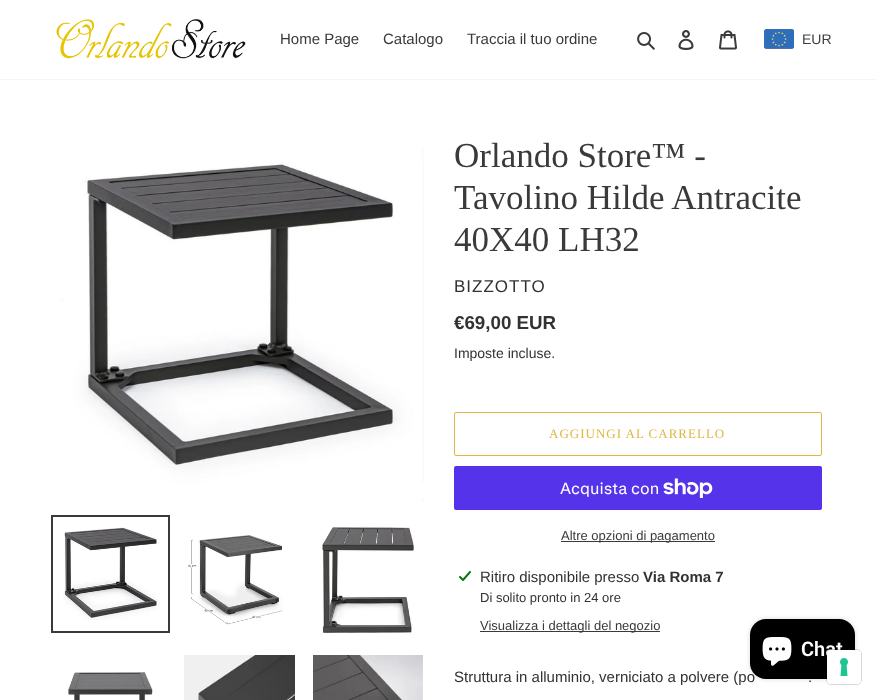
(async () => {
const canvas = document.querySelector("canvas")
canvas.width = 877
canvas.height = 700
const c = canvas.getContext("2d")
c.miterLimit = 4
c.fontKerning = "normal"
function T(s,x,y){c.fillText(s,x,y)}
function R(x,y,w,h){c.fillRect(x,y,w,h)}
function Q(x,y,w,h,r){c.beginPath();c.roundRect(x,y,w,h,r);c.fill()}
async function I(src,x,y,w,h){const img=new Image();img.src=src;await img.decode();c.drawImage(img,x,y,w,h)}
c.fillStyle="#fff"
R(0,0,877,700)
c.fillStyle="#faf4f4"
R(0,79,877,1)
await I("1.png",56,19,190,40)
c.font="15px Liberation Sans"
c.fillStyle="#3a3a3a"
T("Home Page",280,44)
T("Catalogo",383,44)
T("Traccia il tuo ordine",467,44)
await I("2.png",637,32,18,18)
await I("3.png",678,30,16,20)
await I("4.png",719,30,18,20)
await I("5.png",764,29,30,20)
c.font="14px Liberation Sans"
c.fillStyle="#403f3f"
T("EUR",802,44)
await I("6.png",61,148,363,354)
c.strokeStyle="#3a3a3a"
c.lineWidth=2
c.strokeRect(52,516,117,116)
await I("7.png",63,527,97,93)
await I("8.png",188,535,95,90)
await I("9.png",322,526,92,108)
await I("10.png",68,672,85,28)
await I("11.png",184,655,111,45)
await I("12.png",313,655,110,45)
c.font="35px Liberation Serif"
c.fillStyle="#3a3a3a"
T("Orlando Store™ -",454,167)
T("Tavolino Hilde Antracite",454,209)
T("40X40 LH32",454,251)
c.letterSpacing="1px"
c.font="17px Liberation Sans"
c.fillStyle="#333232"
T("BIZZOTTO",454,292)
c.letterSpacing="0px"
c.font="bold 18.75px Liberation Sans"
T("€69,00 EUR",454,329)
c.font="14px Liberation Sans"
T("Imposte incluse.",454,358)
c.beginPath()
c.roundRect(454.5,412.5,367,43,1.5)
c.strokeStyle="#e0b541"
c.lineWidth=1
c.stroke()
c.letterSpacing="1px"
c.font="13px Liberation Serif"
c.fillStyle="#e0b541"
T("AGGIUNGI AL CARRELLO",549,438)
c.fillStyle="#5433eb"
Q(454,466,368,44,2)
c.letterSpacing="0px"
c.font="16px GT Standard"
c.fillStyle="#fff"
T("Acquista con",560,494)
await I("13.png",663,478,50,20)
c.fillStyle="#3a3a3a"
R(561,541,154,1)
c.font="13px Liberation Sans"
T("Altre opzioni di pagamento",561,540)
await I("14.png",459,571,12,10)
c.font="15px Liberation Sans"
c.fillStyle="#333232"
T("Ritiro disponibile presso",480,582)
c.font="bold 15px Liberation Sans"
T("Via Roma 7",643,582)
c.font="13px Liberation Sans"
T("Di solito pronto in 24 ore",480,602)
c.fillStyle="#3a3a3a"
R(480,631,180,1)
T("Visualizza i dettagli del negozio",480,630)
c.font="15px Liberation Sans"
c.fillStyle="#333232"
T("Struttura in alluminio, verniciato a polvere (po",454,682)
T(".",808,682)
c.fillStyle="#00000026"
c.filter="blur(2.5px)"
c.beginPath()
c.roundRect(750,619,105,60,16)
c.fill()
c.filter="none"
c.fillStyle="#000"
Q(750,619,105,60,16)
await I("15.png",762,637,30,29)
c.font="600 20px Roboto"
c.fillStyle="#fff"
T("Chat",801,656)
c.beginPath()
c.roundRect(826.5,649.5,35,35,4.5)
c.strokeStyle="#00000026"
c.stroke()
Q(827,650,34,34,4)
await I("16.png",840,658,8,18)
})()
